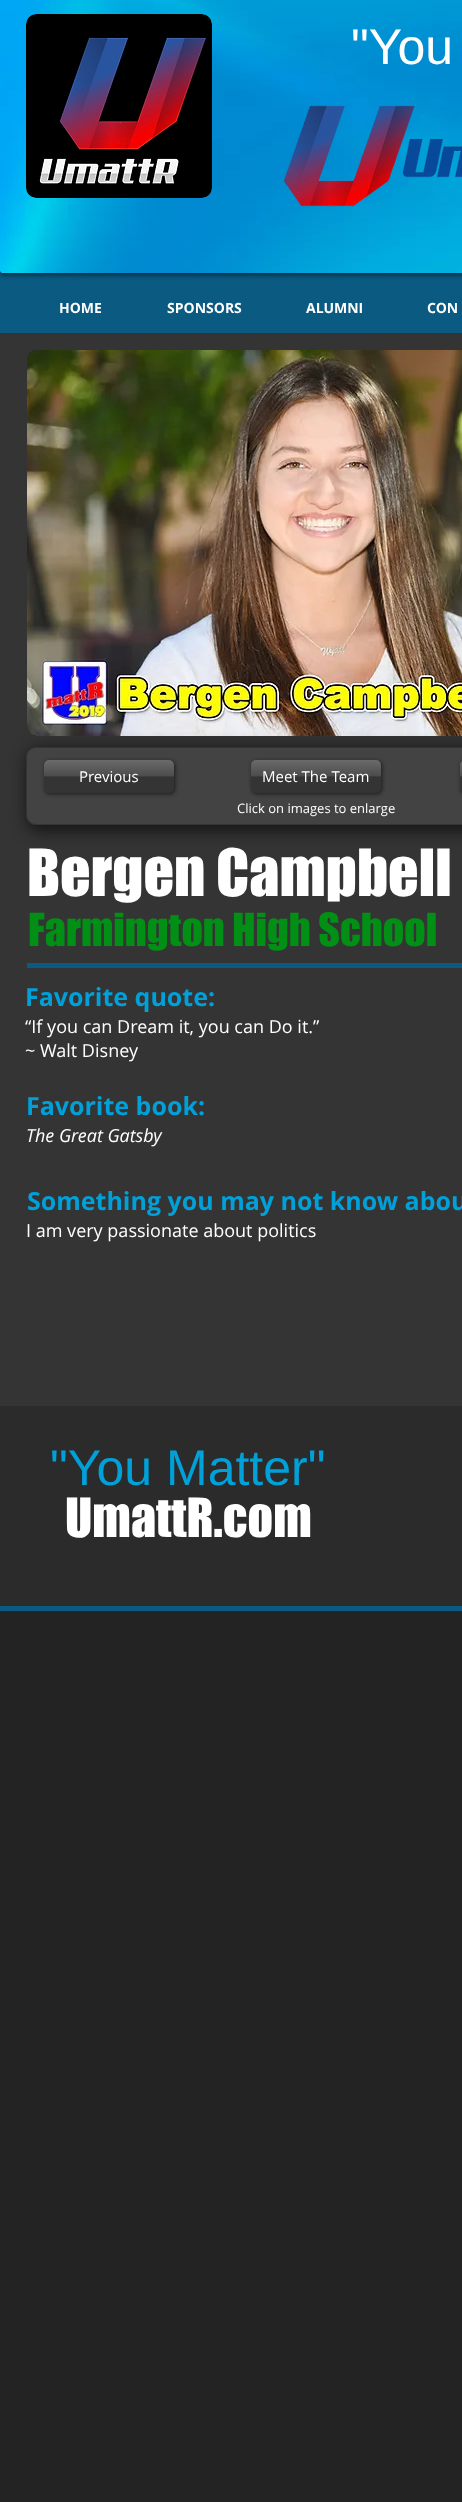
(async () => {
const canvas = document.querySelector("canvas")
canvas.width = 462
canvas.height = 2502
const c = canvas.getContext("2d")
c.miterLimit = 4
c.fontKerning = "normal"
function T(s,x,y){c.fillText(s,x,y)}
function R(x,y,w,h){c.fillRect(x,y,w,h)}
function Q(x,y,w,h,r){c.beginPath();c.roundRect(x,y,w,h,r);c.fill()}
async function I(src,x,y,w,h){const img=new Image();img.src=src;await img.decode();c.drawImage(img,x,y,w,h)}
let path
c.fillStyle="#232323"
R(0,0,462,2502)
c.fillStyle="#0a5a82"
R(0,271,462,62)
c.fillStyle="#00000087"
c.filter="blur(2.5px)"
c.beginPath()
c.roundRect(0,-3,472,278,2)
c.fill()
c.filter="none"
await I("1.png",0,0,462,273)
await I("2.png",26,14,186,184)
c.font="50px Liberation Sans"
c.fillStyle="#fff"
T("\"You",351,64)
await I("3.png",283,105,179,102)
c.font="bold 14px Open Sans"
T("HOME",59,313)
T("SPONSORS",167,313)
T("ALUMNI",306,313)
T("CON",427,313)
c.fillStyle="#343434"
R(0,333,462,1073)
c.fillStyle="#232323"
Q(27,350,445,386,10)
await I("4.png",27,350,435,386)
c.save()
path = new Path2D("M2 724h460v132h-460zm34 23h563c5.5 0 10 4.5 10 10v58c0 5.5-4.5 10-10 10h-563c-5.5 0-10-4.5-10-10v-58c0-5.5 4.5-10 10-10z")
c.clip(path,"evenodd")
c.fillStyle="#00000099"
c.filter="blur(8px)"
c.beginPath()
c.roundRect(27,749,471,82,12)
c.fill()
c.filter="none"
c.restore()
c.fillStyle="#cfcfcf1a"
c.beginPath()
c.roundRect(26.5,747.5,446,77,9.5)
c.fill()
c.strokeStyle="#343434"
c.stroke()
c.fillStyle="#00000099"
c.filter="blur(2px)"
c.beginPath()
c.roundRect(45,761,130,33,5)
c.fill()
c.filter="none"
c.fillStyle="#343434"
Q(44,760,130,33,5)
await I("5.png",44,760,130,17)
c.font="15px Open Sans"
c.fillStyle="#fff"
T("Previous",79,782)
c.fillStyle="#00000099"
c.filter="blur(2px)"
c.beginPath()
c.roundRect(252,761,130,33,5)
c.fill()
c.filter="none"
c.fillStyle="#343434"
Q(251,760,130,33,5)
await I("6.png",251,760,130,17)
c.fillStyle="#fff"
T("Meet The Team",262,782)
c.fillStyle="#00000099"
c.filter="blur(2px)"
c.beginPath()
c.roundRect(461,761,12,33,5)
c.fill()
c.filter="none"
c.fillStyle="#343434"
Q(460,760,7,33,5)
await I("7.png",460,761,2,16)
c.font="13px Open Sans"
c.fillStyle="#fff"
T("Click on images to enlarge",237,813)
c.font="60px 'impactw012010'"
T("Bergen Campbell",27,896)
c.font="42px 'impactw012010'"
c.fillStyle="#028f15"
T("Farmington High School",28,946)
c.fillStyle="#0a5a82"
R(27,963,435,5)
c.font="bold 25px Open Sans"
c.fillStyle="#00a0d9"
T("Favorite quote:",25,1006)
c.font="18px Open Sans"
c.fillStyle="#fff"
T("“If you can Dream it, you can Do it.”",25,1033)
T("~ Walt Disney",25,1057)
c.font="bold 25px Open Sans"
c.fillStyle="#00a0d9"
T("Favorite book:",26,1115)
c.font="italic 18px Open Sans"
c.fillStyle="#fff"
T("The Great Gatsby",26,1142)
c.font="bold 25px Open Sans"
c.fillStyle="#00a0d9"
T("Something you may not know abou",27,1210)
c.font="18px Open Sans"
c.fillStyle="#fff"
T("I am very passionate about politics",26,1237)
c.fillStyle="#2b2b2b"
R(0,1406,462,200)
c.font="50px Liberation Sans"
c.fillStyle="#00a0d9"
T("\"You Matter\"",50,1485)
c.font="50px 'impactw012010'"
c.fillStyle="#fff"
T("UmattR.com",65,1537)
c.fillStyle="#0a5a82"
R(0,1606,462,5)
})()
